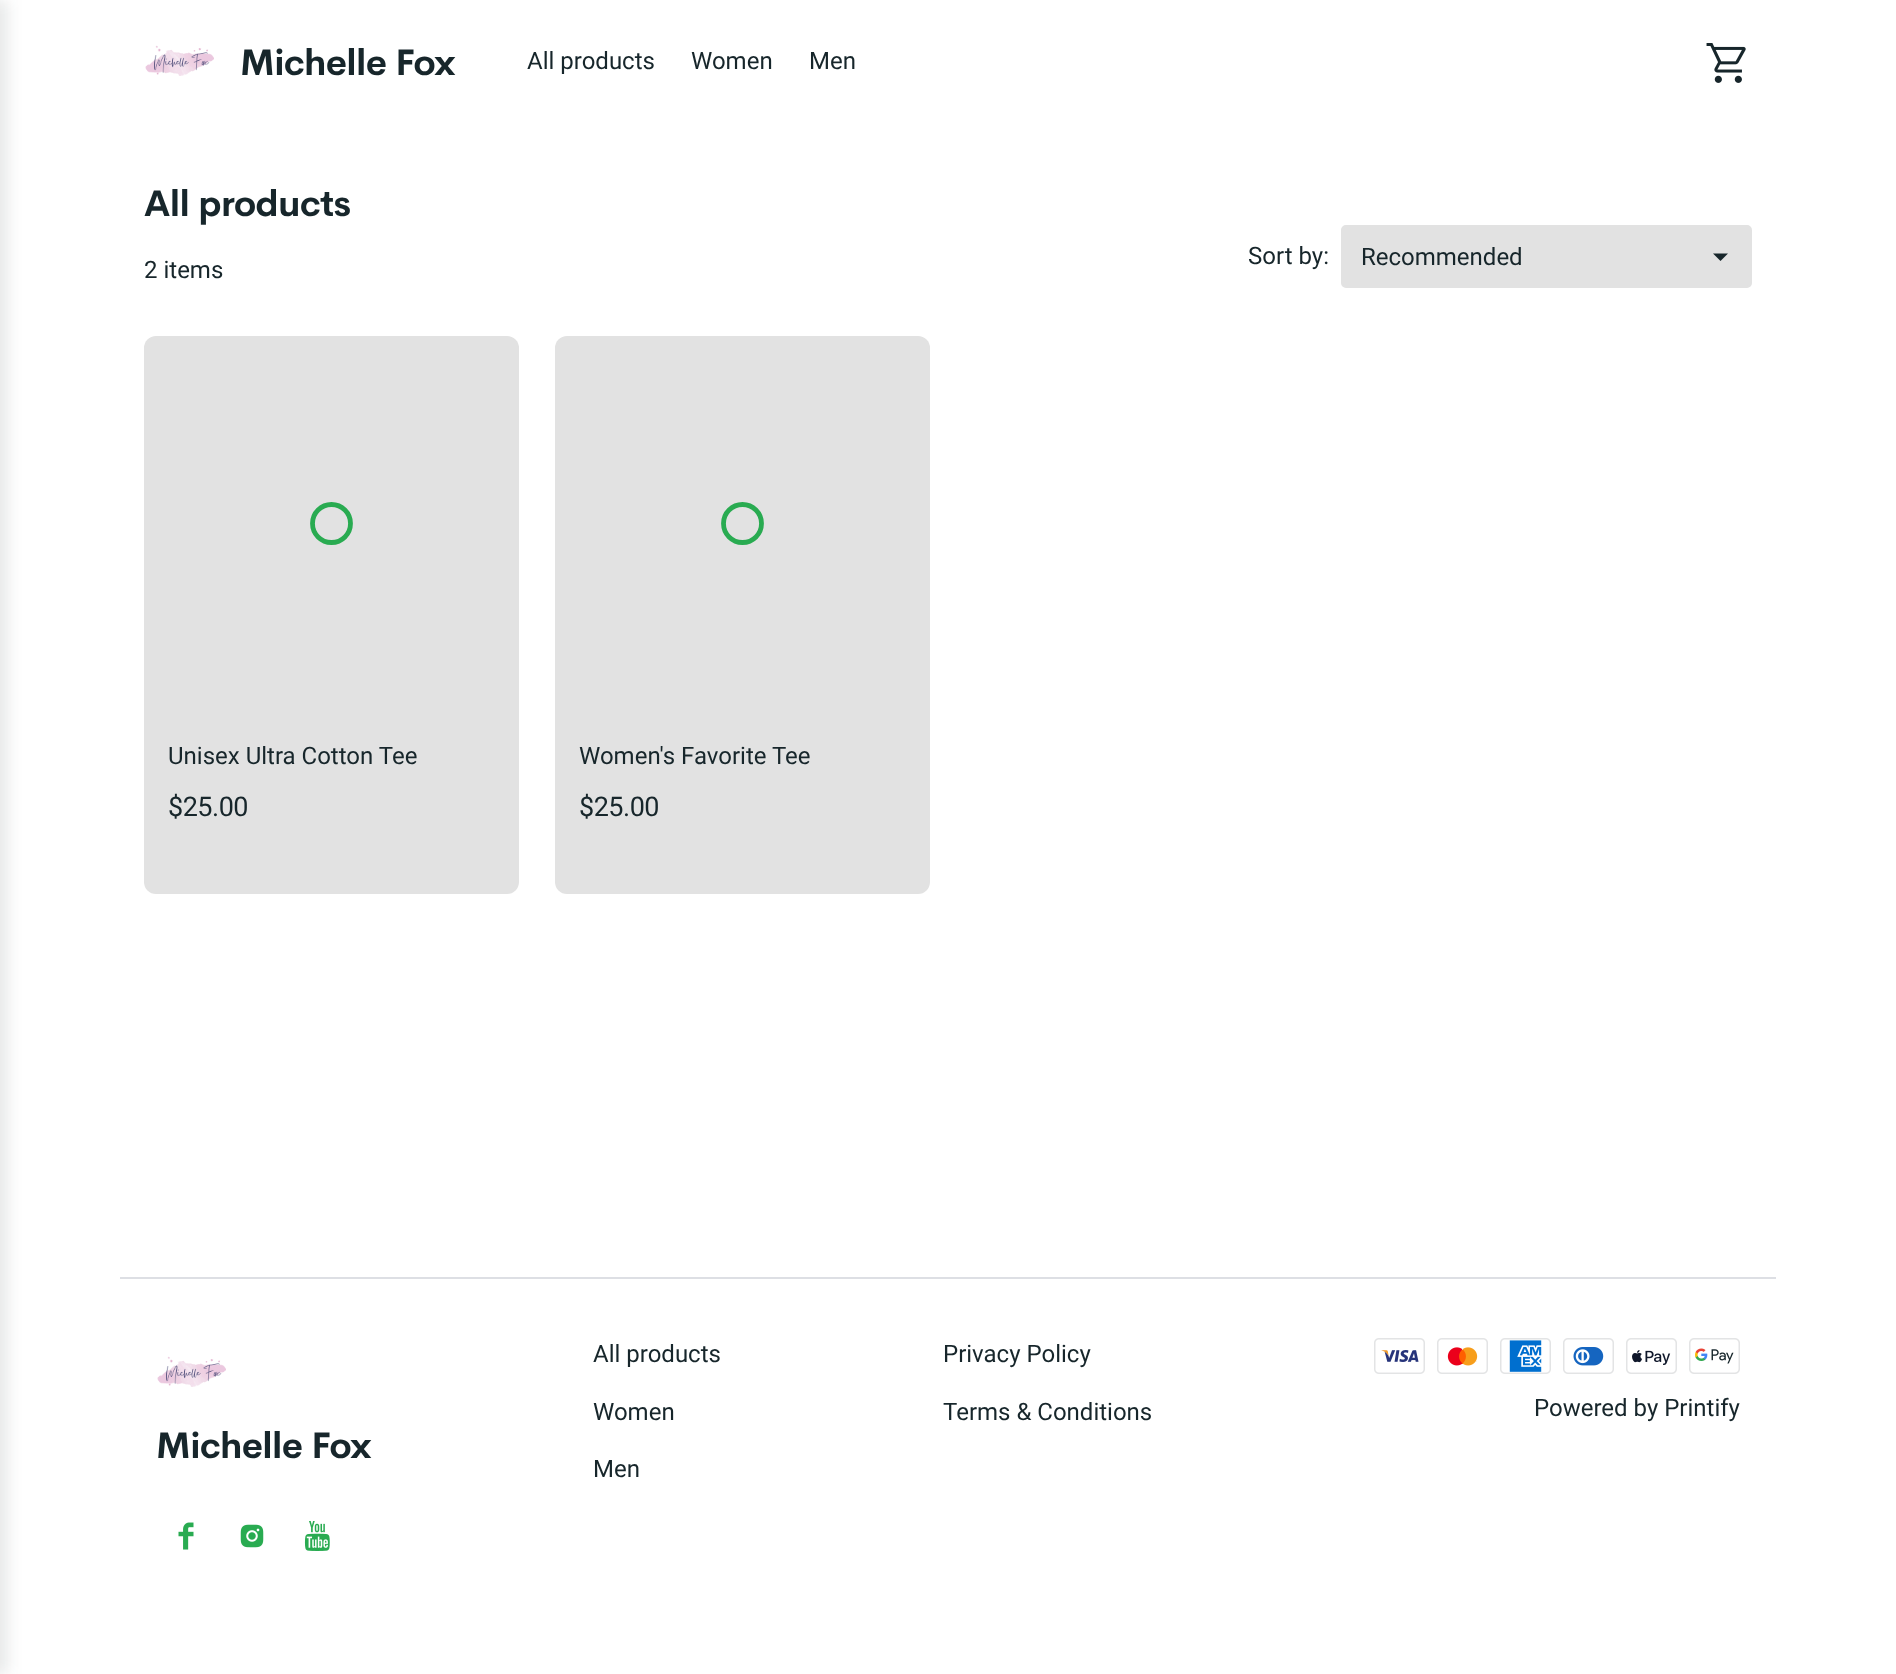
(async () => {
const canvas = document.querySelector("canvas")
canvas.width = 1896
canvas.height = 1674
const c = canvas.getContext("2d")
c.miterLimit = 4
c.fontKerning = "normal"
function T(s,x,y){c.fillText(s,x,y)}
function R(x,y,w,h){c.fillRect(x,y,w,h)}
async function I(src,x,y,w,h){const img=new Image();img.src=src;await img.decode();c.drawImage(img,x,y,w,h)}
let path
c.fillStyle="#fff"
R(0,0,1896,1674)
c.fillStyle="#17262b1a"
c.filter="blur(7.5px)"
c.beginPath()
c.rect(-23,0,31,1674)
c.fill()
c.filter="none"
await I("1.png",145,45,69,31)
c.letterSpacing="-0.5px"
c.font="bold 36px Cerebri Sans"
c.fillStyle="#17262b"
T("Michelle Fox",240,75)
c.letterSpacing="0px"
c.font="24px Roboto"
T("All products",527,69)
T("Women",691,69)
T("Men",809,69)
await I("2.png",1706,43,40,40)
c.letterSpacing="-0.5px"
c.font="bold 36px Cerebri Sans"
T("All products",144,216)
c.letterSpacing="0px"
c.font="24px Roboto"
T("2 items",144,278)
T("Sort by:",1248,264)
c.fillStyle="#e2e2e2"
c.beginPath()
c.roundRect(1342,226,409,61,4)
c.fill()
c.strokeStyle="#e2e2e2"
c.lineWidth=2
c.stroke()
c.fillStyle="#17262b"
T("Recommended",1361,265)
path = new Path2D("M1720.5 261l-7.5-7.5h15z")
c.fill(path)
c.fillStyle="#e2e2e2"
c.beginPath()
c.roundRect(144,336,375,375,[12,12,0,0])
c.fill()
c.beginPath()
c.arc(331.5,523.5,19,0,7)
c.strokeStyle="#29ab51"
c.lineWidth=4.8
c.stroke()
c.beginPath()
c.roundRect(144,711,375,183,[0,0,12,12])
c.fill()
c.fillStyle="#17262b"
T("Unisex Ultra Cotton Tee",168,764)
c.letterSpacing="-0.5px"
c.font="27px Roboto"
T("$25.00",168,816)
c.fillStyle="#e2e2e2"
c.beginPath()
c.roundRect(555,336,375,375,[12,12,0,0])
c.fill()
c.beginPath()
c.arc(742.5,523.5,19,0,7)
c.stroke()
c.beginPath()
c.roundRect(555,711,375,183,[0,0,12,12])
c.fill()
c.letterSpacing="0px"
c.font="24px Roboto"
c.fillStyle="#17262b"
T("Women's Favorite Tee",579,764)
c.letterSpacing="-0.5px"
c.font="27px Roboto"
T("$25.00",579,816)
c.fillStyle="#dddfe4"
R(120,1277,1656,2)
c.letterSpacing="0px"
c.font="24px Roboto"
c.fillStyle="#17262b"
T("All products",593,1362)
T("Women",593,1420)
T("Men",593,1477)
T("Privacy Policy",943,1362)
T("Terms & Conditions",943,1420)
await I("3.png",1374,1338,51,36)
await I("4.png",1437,1338,51,36)
await I("5.png",1500,1338,51,36)
await I("6.png",1563,1338,51,36)
await I("7.png",1626,1338,51,36)
await I("8.png",1689,1338,51,36)
T("Powered by Printify",1534,1416)
await I("1.png",157,1356,69,31)
c.letterSpacing="-0.5px"
c.font="bold 36px Cerebri Sans"
T("Michelle Fox",156,1458)
await I("9.png",178,1522,16,28)
await I("10.png",240,1524,24,24)
await I("11.png",304,1521,26,30)
})()
